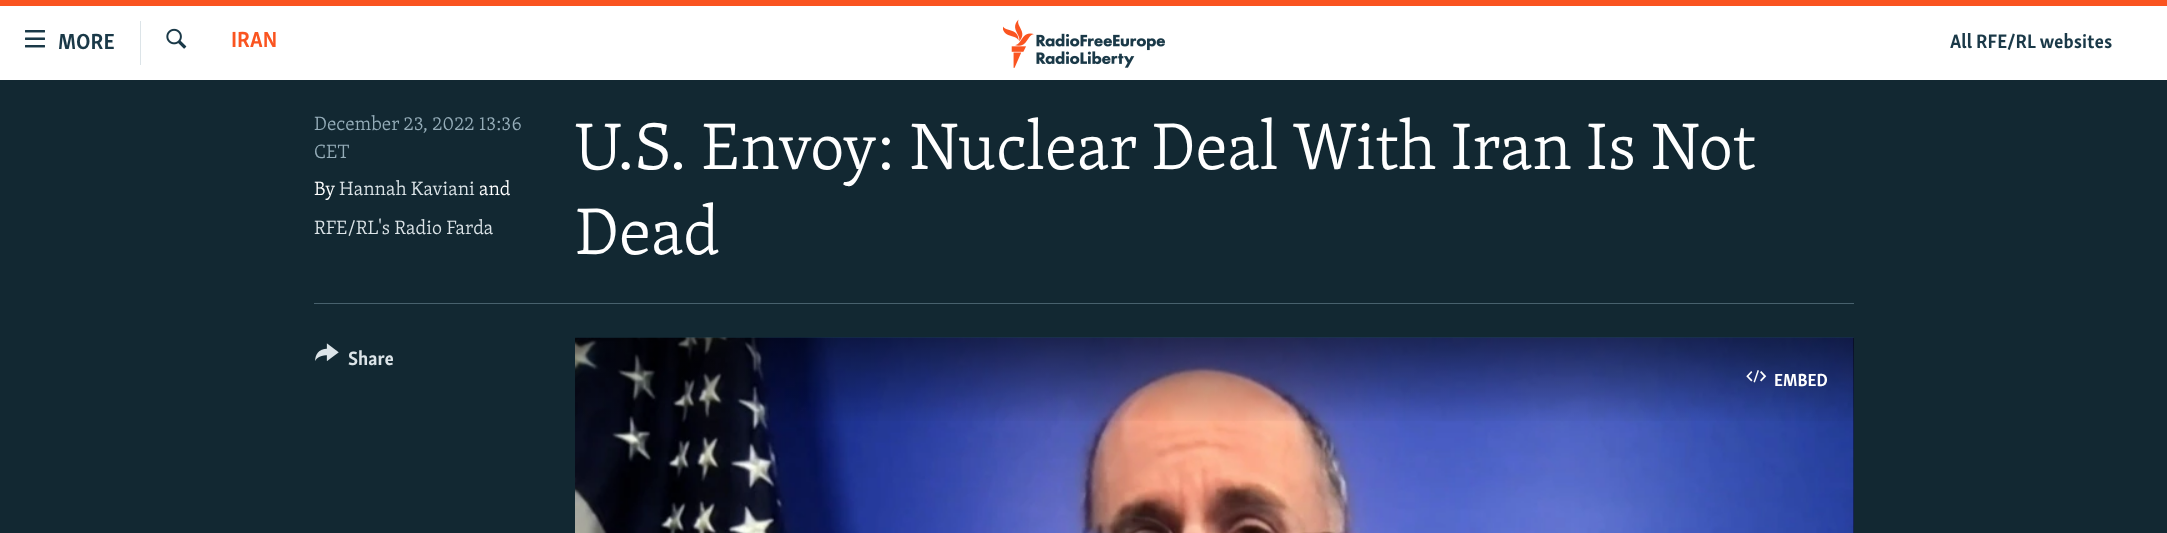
(async () => {
const canvas = document.querySelector("canvas")
canvas.width = 2167
canvas.height = 533
const c = canvas.getContext("2d")
c.miterLimit = 4
c.fontKerning = "normal"
function T(s,x,y){c.fillText(s,x,y)}
function R(x,y,w,h){c.fillRect(x,y,w,h)}
async function I(src,x,y,w,h){const img=new Image();img.src=src;await img.decode();c.drawImage(img,x,y,w,h)}
let gradient
c.fillStyle="#fff"
R(0,0,2167,533)
c.fillStyle="#fa5420"
R(0,0,2167,6)
await I("1.png",25,30,20,18)
c.font="bold 22.5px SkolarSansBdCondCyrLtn"
c.fillStyle="#1a3948"
T("MORE",58,49)
c.fillStyle="#dce4e8"
R(140,21,1,44)
await I("2.png",166,28,21,21)
c.fillStyle="#fa5420"
T("IRAN",231,47)
await I("3.png",1003,19,162,49)
c.font="bold 20px SkolarSansBdCondCyrLtn"
c.fillStyle="#1a3948"
T("All RFE/RL websites",1950,48)
c.fillStyle="#122832"
R(0,80,2167,453)
c.font="300 19.75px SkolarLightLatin"
c.fillStyle="#95adb9"
T("December 23, 2022 13:36",314,130)
T("CET",314,158)
c.fillStyle="#fff"
T("By",314,195)
c.fillStyle="#dce4e8"
T("Hannah Kaviani",339,195)
c.fillStyle="#fff"
T("and",479,195)
c.fillStyle="#dce4e8"
T("RFE/RL's Radio Farda",314,234)
c.font="300 67.5px SkolarLightLatin"
c.fillStyle="#fff"
T("U.S. Envoy: Nuclear Deal With Iran Is Not",575,169)
T("Dead",575,254)
c.fillStyle="#48616d"
R(314,303,1540,1)
await I("4.png",315,343,24,18)
c.font="bold 19.75px SkolarSansBdCondCyrLtn"
c.fillStyle="#dce4e8"
T("Share",348,365)
c.fillStyle="#000"
R(1853,338,1,195)
await I("5.png",575,337,1279,196)
gradient = c.createLinearGradient(1214,337,1214,425)
gradient.addColorStop(0,"#00000080")
gradient.addColorStop(1,"#00000000")
c.fillStyle = gradient
R(575,338,1279,83)
await I("6.png",1746,370,21,13)
c.font="bold 18px SkolarSansBdCondCyrLtn"
c.fillStyle="#fff"
T("EMBED",1774,386)
})()
